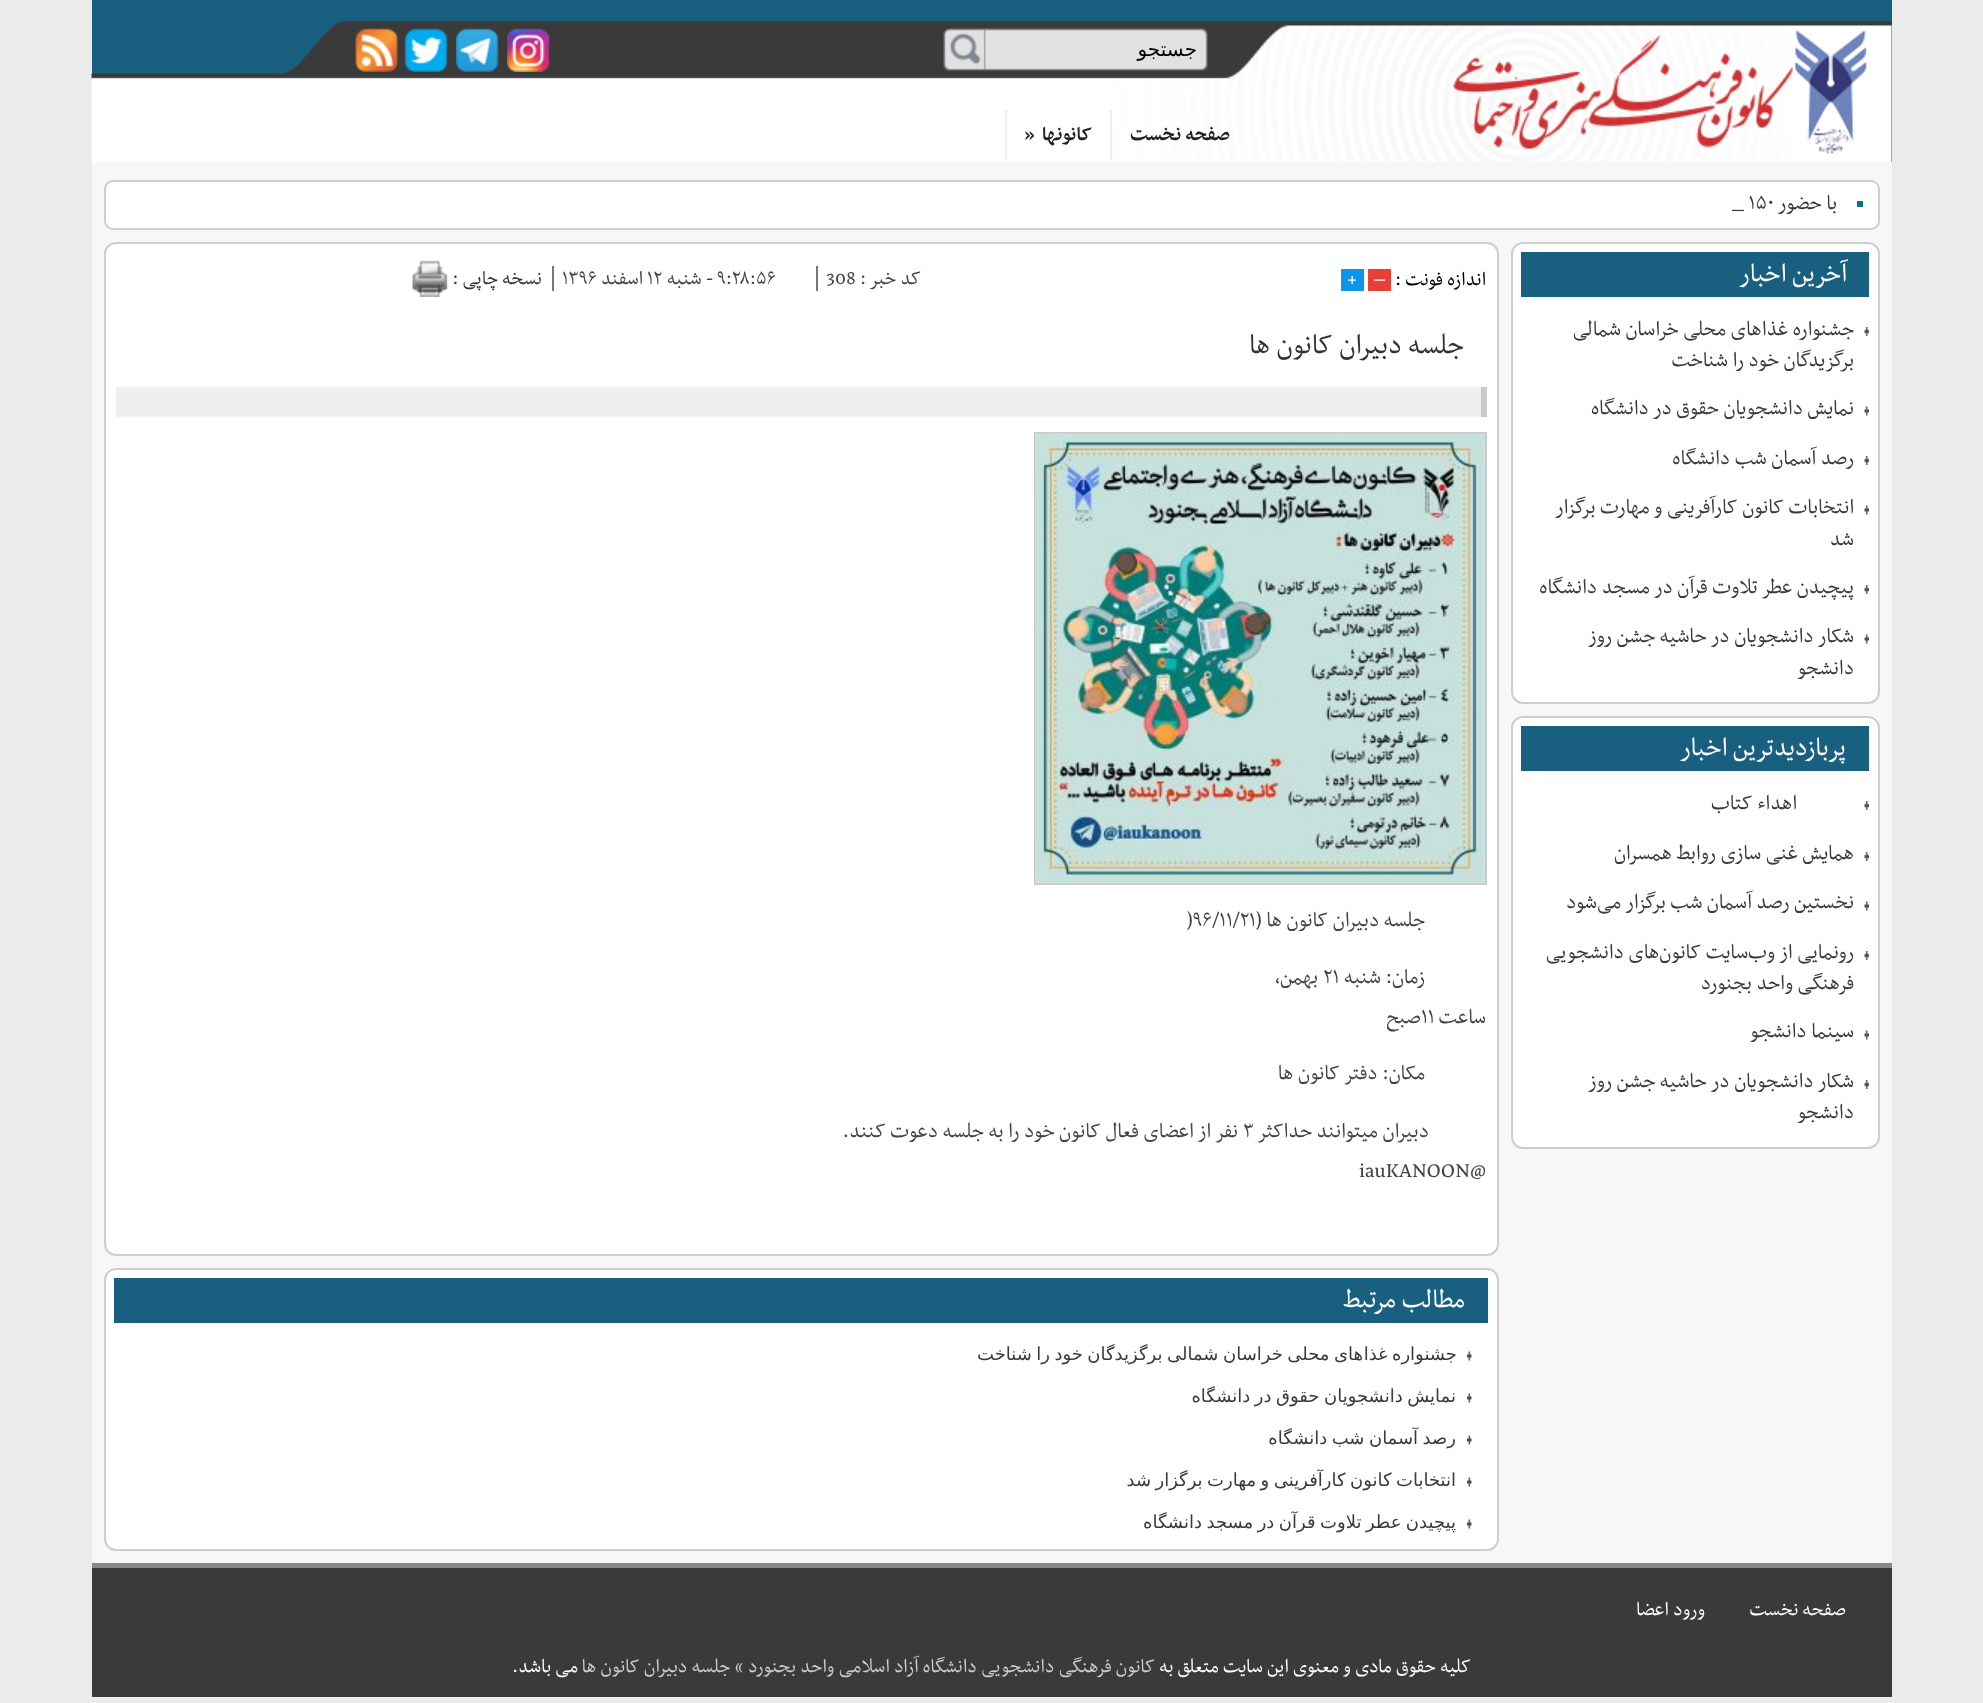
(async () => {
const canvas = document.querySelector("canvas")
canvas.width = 1983
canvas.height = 1703
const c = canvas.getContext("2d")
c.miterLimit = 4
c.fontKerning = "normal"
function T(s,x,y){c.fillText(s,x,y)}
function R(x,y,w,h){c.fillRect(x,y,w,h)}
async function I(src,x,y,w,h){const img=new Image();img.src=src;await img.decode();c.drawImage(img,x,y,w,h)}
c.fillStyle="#ebebeb"
R(0,0,1983,1703)
c.fillStyle="#196080"
R(92,0,1800,162)
await I("1.png",91,20,1801,142)
await I("2.png",1453,30,415,125)
await I("3.png",943,28,265,43)
c.direction="rtl"
c.font="20px DejaVu Sans"
c.fillStyle="#000"
T("جستجو",1197,56)
await I("4.png",507,28,43,44)
await I("5.png",456,28,43,44)
await I("6.png",405,28,43,44)
await I("7.png",355,28,43,44)
c.fillStyle="#eee"
R(1110,110,2,49)
c.font="bold 22.5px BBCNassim"
c.fillStyle="#222"
T("صفحه نخست",1230,140)
c.fillStyle="#eee"
R(1005,110,2,49)
c.fillStyle="#222"
T("کانونها",1092,140)
c.direction="ltr"
T("»",1024,140)
c.fillStyle="#f7f7f7"
R(92,162,1800,1401)
c.fillStyle="#fff"
c.beginPath()
c.roundRect(105,181,1774,48,8)
c.fill()
c.strokeStyle="#cecece"
c.lineWidth=2
c.stroke()
c.fillStyle="#0d728d"
R(1857,201,6,6)
c.direction="rtl"
c.font="24px BBCNassim"
c.fillStyle="#3a3a3a"
T("با حضور",1837,209)
c.direction="ltr"
T("_ ۱۵۰",1732,209)
c.fillStyle="#fff"
c.beginPath()
c.roundRect(1512,243,367,460,11)
c.fill()
c.stroke()
c.fillStyle="#196080"
R(1521,252,348,45)
c.direction="rtl"
c.font="30px BBCNassim"
c.fillStyle="#fff"
T("آخرین اخبار",1847,281)
await I("8.png",1864,327,5,9)
c.font="24px BBCNassim"
c.fillStyle="#3a3a3a"
T("جشنواره غذا‌های محلی خراسان شمالی",1854,335)
T("برگزیدگان خود را شناخت",1854,366)
await I("9.png",1864,406,5,10)
T("نمایش دانشجویان حقوق در دانشگاه",1854,414)
await I("8.png",1864,456,5,9)
T("رصد آسمان شب دانشگاه",1854,464)
await I("9.png",1864,505,5,10)
T("انتخابات کانون کارآفرینی و مهارت برگزار",1854,513)
T("شد",1854,545)
await I("8.png",1864,585,5,9)
T("پیچیدن عطر تلاوت قرآن در مسجد دانشگاه",1854,593)
await I("9.png",1864,634,5,10)
T("شکار دانشجویان در حاشیه جشن روز",1854,642)
T("دانشجو",1854,674)
c.fillStyle="#fff"
c.beginPath()
c.roundRect(1512,717,367,431,11)
c.fill()
c.stroke()
c.fillStyle="#196080"
R(1521,726,348,45)
c.font="30px BBCNassim"
c.fillStyle="#fff"
T("پربازدیدترین اخبار",1846,755)
await I("8.png",1864,801,5,9)
c.font="24px BBCNassim"
c.fillStyle="#3a3a3a"
T("اهداء کتاب",1797,809)
await I("8.png",1864,852,5,9)
T("همایش غنی سازی روابط همسران",1854,859)
await I("9.png",1864,901,5,10)
T("نخستین رصد آسمان شب برگزار می‌شود",1854,908)
await I("8.png",1864,951,5,9)
T("رونمایی از وب‌سایت کانون‌های دانشجویی",1854,958)
T("فرهنگی واحد بجنورد",1854,989)
await I("9.png",1864,1030,5,10)
T("سینما دانشجو",1854,1037)
await I("8.png",1864,1080,5,9)
T("شکار دانشجویان در حاشیه جشن روز",1854,1087)
T("دانشجو",1854,1118)
c.fillStyle="#fff"
c.beginPath()
c.roundRect(105,243,1393,1012,11)
c.fill()
c.stroke()
c.font="22.5px BBCNassim"
c.fillStyle="#000"
T("اندازه فونت :",1486,285)
c.fillStyle="#e84037"
R(1368,269,23,22)
c.direction="ltr"
c.fillStyle="#fff"
T("–",1374,285)
c.fillStyle="#0e94e9"
R(1341,269,23,22)
c.fillStyle="#fff"
T("+",1347,285)
c.fillStyle="#777"
R(816,266,2,25)
c.direction="rtl"
c.fillStyle="#444"
T("کد خبر :",921,284)
c.direction="ltr"
T("308",826,284)
c.fillStyle="#777"
R(552,266,2,25)
c.fillStyle="#444"
T("۹:۲۸:۵۶",717,284)
c.direction="rtl"
T("- شنبه",713,284)
c.direction="ltr"
T("۱۲",647,284)
c.direction="rtl"
T("اسفند",643,284)
c.direction="ltr"
T("۱۳۹۶",562,284)
c.direction="rtl"
c.fillStyle="#333"
T("نسخه چاپی :",542,284)
await I("10.png",412,260,36,37)
c.font="32.5px BBCNassim"
T("جلسه دبیران کانون ها",1464,353)
c.fillStyle="#efefef"
R(116,387,1365,30)
c.fillStyle="#cacaca"
R(1481,387,6,30)
c.strokeStyle="#c9c9c9"
c.strokeRect(1035,433,451,451)
await I("11.png",1035,433,450,451)
c.font="24px BBCNassim"
c.fillStyle="#444"
T("جلسه دبیران کانون ها (",1425,926)
c.direction="ltr"
T(")۹۶/۱۱/۲۱",1187,926)
c.direction="rtl"
T("زمان: شنبه",1425,983)
c.direction="ltr"
T("۲۱",1323,983)
c.direction="rtl"
T("بهمن،",1318,983)
T("ساعت",1486,1023)
c.direction="ltr"
T("۱۱",1421,1023)
c.direction="rtl"
T("صبح",1421,1023)
T("مکان: دفتر کانون ها",1425,1079)
T("دبیران میتوانند حداکثر",1429,1137)
c.direction="ltr"
T("٣",1243,1137)
c.direction="rtl"
T("نفر از اعضای فعال کانون خود را به جلسه دعوت کنند.",1238,1137)
c.direction="ltr"
T("iauKANOON@",1359,1177)
c.fillStyle="#fff"
c.beginPath()
c.roundRect(105,1269,1393,281,11)
c.fill()
c.strokeStyle="#cecece"
c.stroke()
c.fillStyle="#196080"
R(114,1278,1374,45)
c.direction="rtl"
c.font="30px BBCNassim"
c.fillStyle="#fff"
T("مطالب مرتبط",1465,1307)
await I("12.png",1467,1351,5,10)
c.wordSpacing="-1.25px"
c.font="18px DejaVu Sans"
c.fillStyle="#3a3a3a"
T("های محلی خراسان شمالی برگزیدگان خود را شناخت",1363,1360)
T("جشنواره غذا",1457,1360)
await I("12.png",1467,1393,5,10)
T("نمایش دانشجویان حقوق در دانشگاه",1456,1402)
await I("12.png",1467,1435,5,10)
T("رصد آسمان شب دانشگاه",1456,1444)
await I("12.png",1467,1477,5,10)
T("انتخابات کانون کارآفرینی و مهارت برگزار شد",1456,1486)
await I("12.png",1467,1519,5,10)
T("پیچیدن عطر تلاوت قرآن در مسجد دانشگاه",1456,1528)
R(92,1568,1800,129)
c.fillStyle="#888"
R(92,1563,1800,5)
c.wordSpacing="0px"
c.font="22.5px BBCNassim"
c.fillStyle="#fff"
T("صفحه نخست",1846,1615)
T("ورود اعضا",1705,1615)
T("کلیه حقوق مادی و معنوی این سایت متعلق به",1471,1672)
c.fillStyle="#ccc"
T("کانون فرهنگی دانشجویی دانشگاه آزاد اسلامی واحد بجنورد » جلسه دبیران کانون ها",1155,1672)
c.fillStyle="#fff"
T("می باشد.",578,1672)
})()
